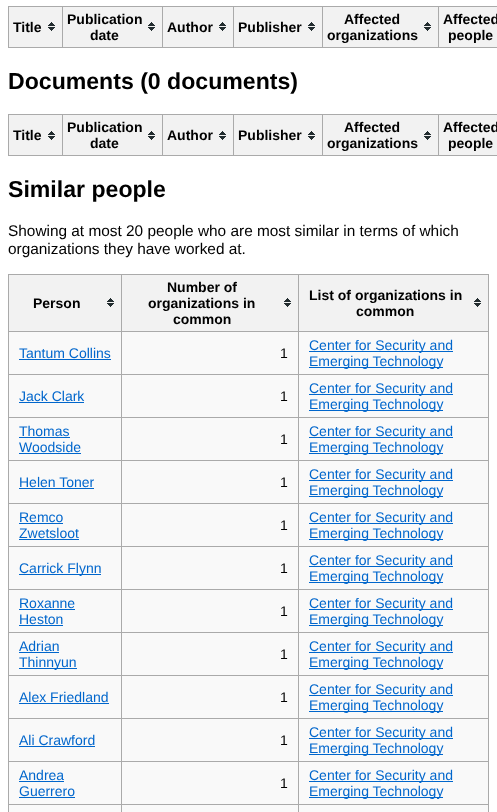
(async () => {
const canvas = document.querySelector("canvas")
canvas.width = 497
canvas.height = 812
const c = canvas.getContext("2d")
c.miterLimit = 4
c.fontKerning = "normal"
function T(s,x,y){c.fillText(s,x,y)}
function R(x,y,w,h){c.fillRect(x,y,w,h)}
async function I(src,x,y,w,h){const img=new Image();img.src=src;await img.decode();c.drawImage(img,x,y,w,h)}
c.fillStyle="#fff"
R(0,0,497,812)
c.fillStyle="#f2f2f2"
R(9,7,53,40)
await I("1.png",48,22,7,9)
c.fillStyle="#aaa"
R(438,6,59,1)
R(438,47,59,1)
R(438,6,1,42)
R(322,6,117,1)
R(322,47,117,1)
R(322,6,1,42)
R(233,6,90,1)
R(233,47,90,1)
R(233,6,1,42)
R(162,6,72,1)
R(162,47,72,1)
R(162,6,1,42)
R(62,6,101,1)
R(62,47,101,1)
R(62,6,1,42)
R(8,6,55,1)
R(8,47,55,1)
R(8,6,1,42)
c.font="bold 14px Liberation Sans"
c.fillStyle="#000"
T("Title",13,32)
c.fillStyle="#f2f2f2"
R(63,7,99,40)
await I("1.png",148,22,7,9)
c.fillStyle="#000"
T("Publication",67,24)
T("date",90,40)
c.fillStyle="#f2f2f2"
R(163,7,70,40)
await I("1.png",219,22,7,9)
c.fillStyle="#000"
T("Author",167,32)
c.fillStyle="#f2f2f2"
R(234,7,88,40)
await I("1.png",308,22,7,9)
c.fillStyle="#000"
T("Publisher",238,32)
c.fillStyle="#f2f2f2"
R(323,7,115,40)
await I("1.png",424,22,7,9)
c.fillStyle="#000"
T("Affected",344,24)
T("organizations",327,40)
c.fillStyle="#f2f2f2"
R(439,7,58,40)
c.fillStyle="#000"
T("Affected",443,24)
T("people",448,40)
c.font="bold 23.1px Liberation Sans"
T("Documents (0 documents)",8,89)
c.fillStyle="#f2f2f2"
R(9,115,53,40)
await I("1.png",48,131,7,9)
c.fillStyle="#aaa"
R(438,114,59,1)
R(438,155,59,1)
R(438,114,1,42)
R(322,114,117,1)
R(322,155,117,1)
R(322,114,1,42)
R(233,114,90,1)
R(233,155,90,1)
R(233,114,1,42)
R(162,114,72,1)
R(162,155,72,1)
R(162,114,1,42)
R(62,114,101,1)
R(62,155,101,1)
R(62,114,1,42)
R(8,114,55,1)
R(8,155,55,1)
R(8,114,1,42)
c.font="bold 14px Liberation Sans"
c.fillStyle="#000"
T("Title",13,140)
c.fillStyle="#f2f2f2"
R(63,115,99,40)
await I("1.png",148,131,7,9)
c.fillStyle="#000"
T("Publication",67,132)
T("date",90,148)
c.fillStyle="#f2f2f2"
R(163,115,70,40)
await I("1.png",219,131,7,9)
c.fillStyle="#000"
T("Author",167,140)
c.fillStyle="#f2f2f2"
R(234,115,88,40)
await I("1.png",308,131,7,9)
c.fillStyle="#000"
T("Publisher",238,140)
c.fillStyle="#f2f2f2"
R(323,115,115,40)
await I("1.png",424,131,7,9)
c.fillStyle="#000"
T("Affected",344,132)
T("organizations",327,148)
c.fillStyle="#f2f2f2"
R(439,115,58,40)
c.fillStyle="#000"
T("Affected",443,132)
T("people",448,148)
c.font="bold 23.1px Liberation Sans"
T("Similar people",8,197)
c.font="15.4px Liberation Sans"
T("Showing at most 20 people who are most similar in terms of which",8,236)
T("organizations they have worked at.",8,254)
c.fillStyle="#f9f9f9"
R(9,332,479,480)
c.fillStyle="#f2f2f2"
R(9,275,112,56)
await I("1.png",107,298,7,9)
c.fillStyle="#aaa"
R(298,274,191,1)
R(298,331,191,1)
R(298,374,191,1)
R(298,417,191,1)
R(298,460,191,1)
R(298,503,191,1)
R(298,546,191,1)
R(298,589,191,1)
R(298,632,191,1)
R(298,675,191,1)
R(298,718,191,1)
R(298,761,191,1)
R(298,804,191,1)
R(298,804,1,8)
R(121,804,178,1)
R(298,761,1,44)
R(121,761,178,1)
R(298,718,1,44)
R(121,718,178,1)
R(298,675,1,44)
R(121,675,178,1)
R(298,632,1,44)
R(121,632,178,1)
R(298,589,1,44)
R(121,589,178,1)
R(298,546,1,44)
R(121,546,178,1)
R(298,503,1,44)
R(121,503,178,1)
R(298,460,1,44)
R(121,460,178,1)
R(298,417,1,44)
R(121,417,178,1)
R(298,374,1,44)
R(121,374,178,1)
R(298,331,1,44)
R(121,331,178,1)
R(298,274,1,58)
R(121,274,178,1)
R(121,804,1,8)
R(8,804,114,1)
R(121,761,1,44)
R(8,761,114,1)
R(121,718,1,44)
R(8,718,114,1)
R(121,675,1,44)
R(8,675,114,1)
R(121,632,1,44)
R(8,632,114,1)
R(121,589,1,44)
R(8,589,114,1)
R(121,546,1,44)
R(8,546,114,1)
R(121,503,1,44)
R(8,503,114,1)
R(121,460,1,44)
R(8,460,114,1)
R(121,417,1,44)
R(8,417,114,1)
R(121,374,1,44)
R(8,374,114,1)
R(121,331,1,44)
R(8,331,114,1)
R(121,274,1,58)
R(8,274,114,1)
R(8,804,1,8)
R(8,761,1,44)
R(8,718,1,44)
R(8,675,1,44)
R(8,632,1,44)
R(8,589,1,44)
R(8,546,1,44)
R(8,503,1,44)
R(8,460,1,44)
R(8,417,1,44)
R(8,374,1,44)
R(8,331,1,44)
R(8,274,1,58)
c.font="bold 14px Liberation Sans"
c.fillStyle="#000"
T("Person",33,308)
c.fillStyle="#f2f2f2"
R(122,275,176,56)
await I("1.png",284,298,7,9)
c.fillStyle="#000"
T("Number of",167,292)
T("organizations in",148,308)
T("common",173,324)
c.fillStyle="#f2f2f2"
R(299,275,189,56)
await I("1.png",474,298,7,9)
c.fillStyle="#aaa"
R(488,804,1,8)
R(488,761,1,44)
R(488,718,1,44)
R(488,675,1,44)
R(488,632,1,44)
R(488,589,1,44)
R(488,546,1,44)
R(488,503,1,44)
R(488,460,1,44)
R(488,417,1,44)
R(488,374,1,44)
R(488,331,1,44)
R(488,274,1,58)
c.fillStyle="#000"
T("List of organizations in",309,300)
T("common",356,316)
c.font="14px Liberation Sans"
c.fillStyle="#06c"
T("Tantum Collins",19,358)
R(19,359,92,1)
c.fillStyle="#000"
T("1",280,358)
c.fillStyle="#06c"
R(309,351,144,1)
T("Center for Security and",309,350)
R(309,367,134,1)
T("Emerging Technology",309,366)
T("Jack Clark",19,401)
R(19,402,65,1)
c.fillStyle="#000"
T("1",280,401)
c.fillStyle="#06c"
R(309,394,144,1)
T("Center for Security and",309,393)
R(309,410,134,1)
T("Emerging Technology",309,409)
T("Thomas",19,436)
R(19,437,51,1)
T("Woodside",19,452)
R(19,453,62,1)
c.fillStyle="#000"
T("1",280,444)
c.fillStyle="#06c"
R(309,437,144,1)
T("Center for Security and",309,436)
R(309,453,134,1)
T("Emerging Technology",309,452)
T("Helen Toner",19,487)
R(19,488,75,1)
c.fillStyle="#000"
T("1",280,487)
c.fillStyle="#06c"
R(309,480,144,1)
T("Center for Security and",309,479)
R(309,496,134,1)
T("Emerging Technology",309,495)
T("Remco",19,522)
R(19,523,44,1)
T("Zwetsloot",19,538)
R(19,539,60,1)
c.fillStyle="#000"
T("1",280,530)
c.fillStyle="#06c"
R(309,523,144,1)
T("Center for Security and",309,522)
R(309,539,134,1)
T("Emerging Technology",309,538)
R(19,574,82,1)
T("Carrick Flynn",19,573)
c.fillStyle="#000"
T("1",280,573)
c.fillStyle="#06c"
R(309,566,144,1)
T("Center for Security and",309,565)
R(309,582,134,1)
T("Emerging Technology",309,581)
T("Roxanne",19,608)
R(19,609,56,1)
T("Heston",19,624)
R(19,625,44,1)
c.fillStyle="#000"
T("1",280,616)
c.fillStyle="#06c"
R(309,609,144,1)
T("Center for Security and",309,608)
R(309,625,134,1)
T("Emerging Technology",309,624)
T("Adrian",19,651)
R(19,652,40,1)
R(19,668,58,1)
T("Thinnyun",19,667)
c.fillStyle="#000"
T("1",280,659)
c.fillStyle="#06c"
R(309,652,144,1)
T("Center for Security and",309,651)
R(309,668,134,1)
T("Emerging Technology",309,667)
T("Alex Friedland",19,702)
R(19,703,90,1)
c.fillStyle="#000"
T("1",280,702)
c.fillStyle="#06c"
R(309,695,144,1)
T("Center for Security and",309,694)
R(309,711,134,1)
T("Emerging Technology",309,710)
T("Ali Crawford",19,745)
R(19,746,76,1)
c.fillStyle="#000"
T("1",280,745)
c.fillStyle="#06c"
R(309,738,144,1)
T("Center for Security and",309,737)
R(309,754,134,1)
T("Emerging Technology",309,753)
T("Andrea",19,780)
R(19,781,45,1)
T("Guerrero",19,796)
R(19,797,56,1)
c.fillStyle="#000"
T("1",280,788)
c.fillStyle="#06c"
R(309,781,144,1)
T("Center for Security and",309,780)
R(309,797,134,1)
T("Emerging Technology",309,796)
})()
